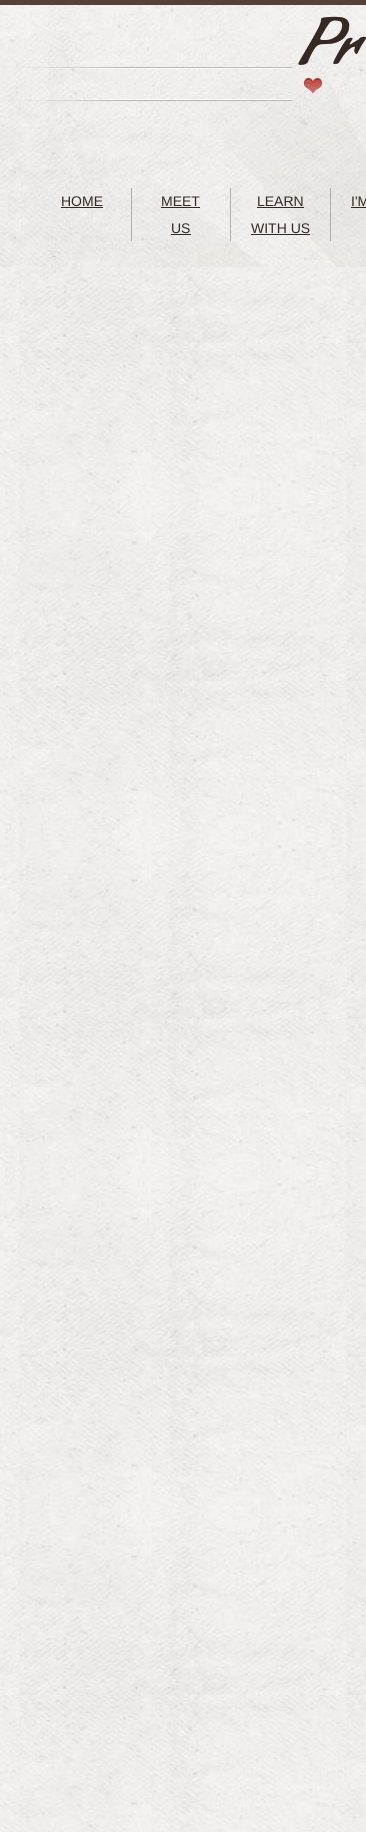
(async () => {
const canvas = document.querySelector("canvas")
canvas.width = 366
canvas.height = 1832
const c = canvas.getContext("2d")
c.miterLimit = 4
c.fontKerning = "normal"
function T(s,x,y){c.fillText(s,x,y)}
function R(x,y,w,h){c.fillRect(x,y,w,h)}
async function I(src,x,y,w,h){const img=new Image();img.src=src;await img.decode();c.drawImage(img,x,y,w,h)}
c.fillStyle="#fff"
R(0,0,366,1832)
await I("1.png",0,267,366,1565)
c.fillStyle="#574137"
R(0,0,366,5)
await I("2.png",0,5,366,262)
c.font="64px Condiment"
c.fillStyle="#362923"
T("Pr",300,62)
c.fillStyle="#aeaeae"
R(131,188,1,53)
c.font="14px Liberation Sans"
c.fillStyle="#362923"
T("HOME",61,206)
R(61,207,42,1)
c.fillStyle="#aeaeae"
R(230,188,1,53)
c.fillStyle="#362923"
T("MEET",161,206)
R(161,207,39,1)
T("US",171,233)
R(171,234,20,1)
c.fillStyle="#aeaeae"
R(330,188,1,53)
c.fillStyle="#362923"
T("LEARN",257,206)
R(257,207,47,1)
T("WITH US",251,233)
R(251,234,59,1)
T("I'M",351,206)
R(351,207,15,1)
})()
